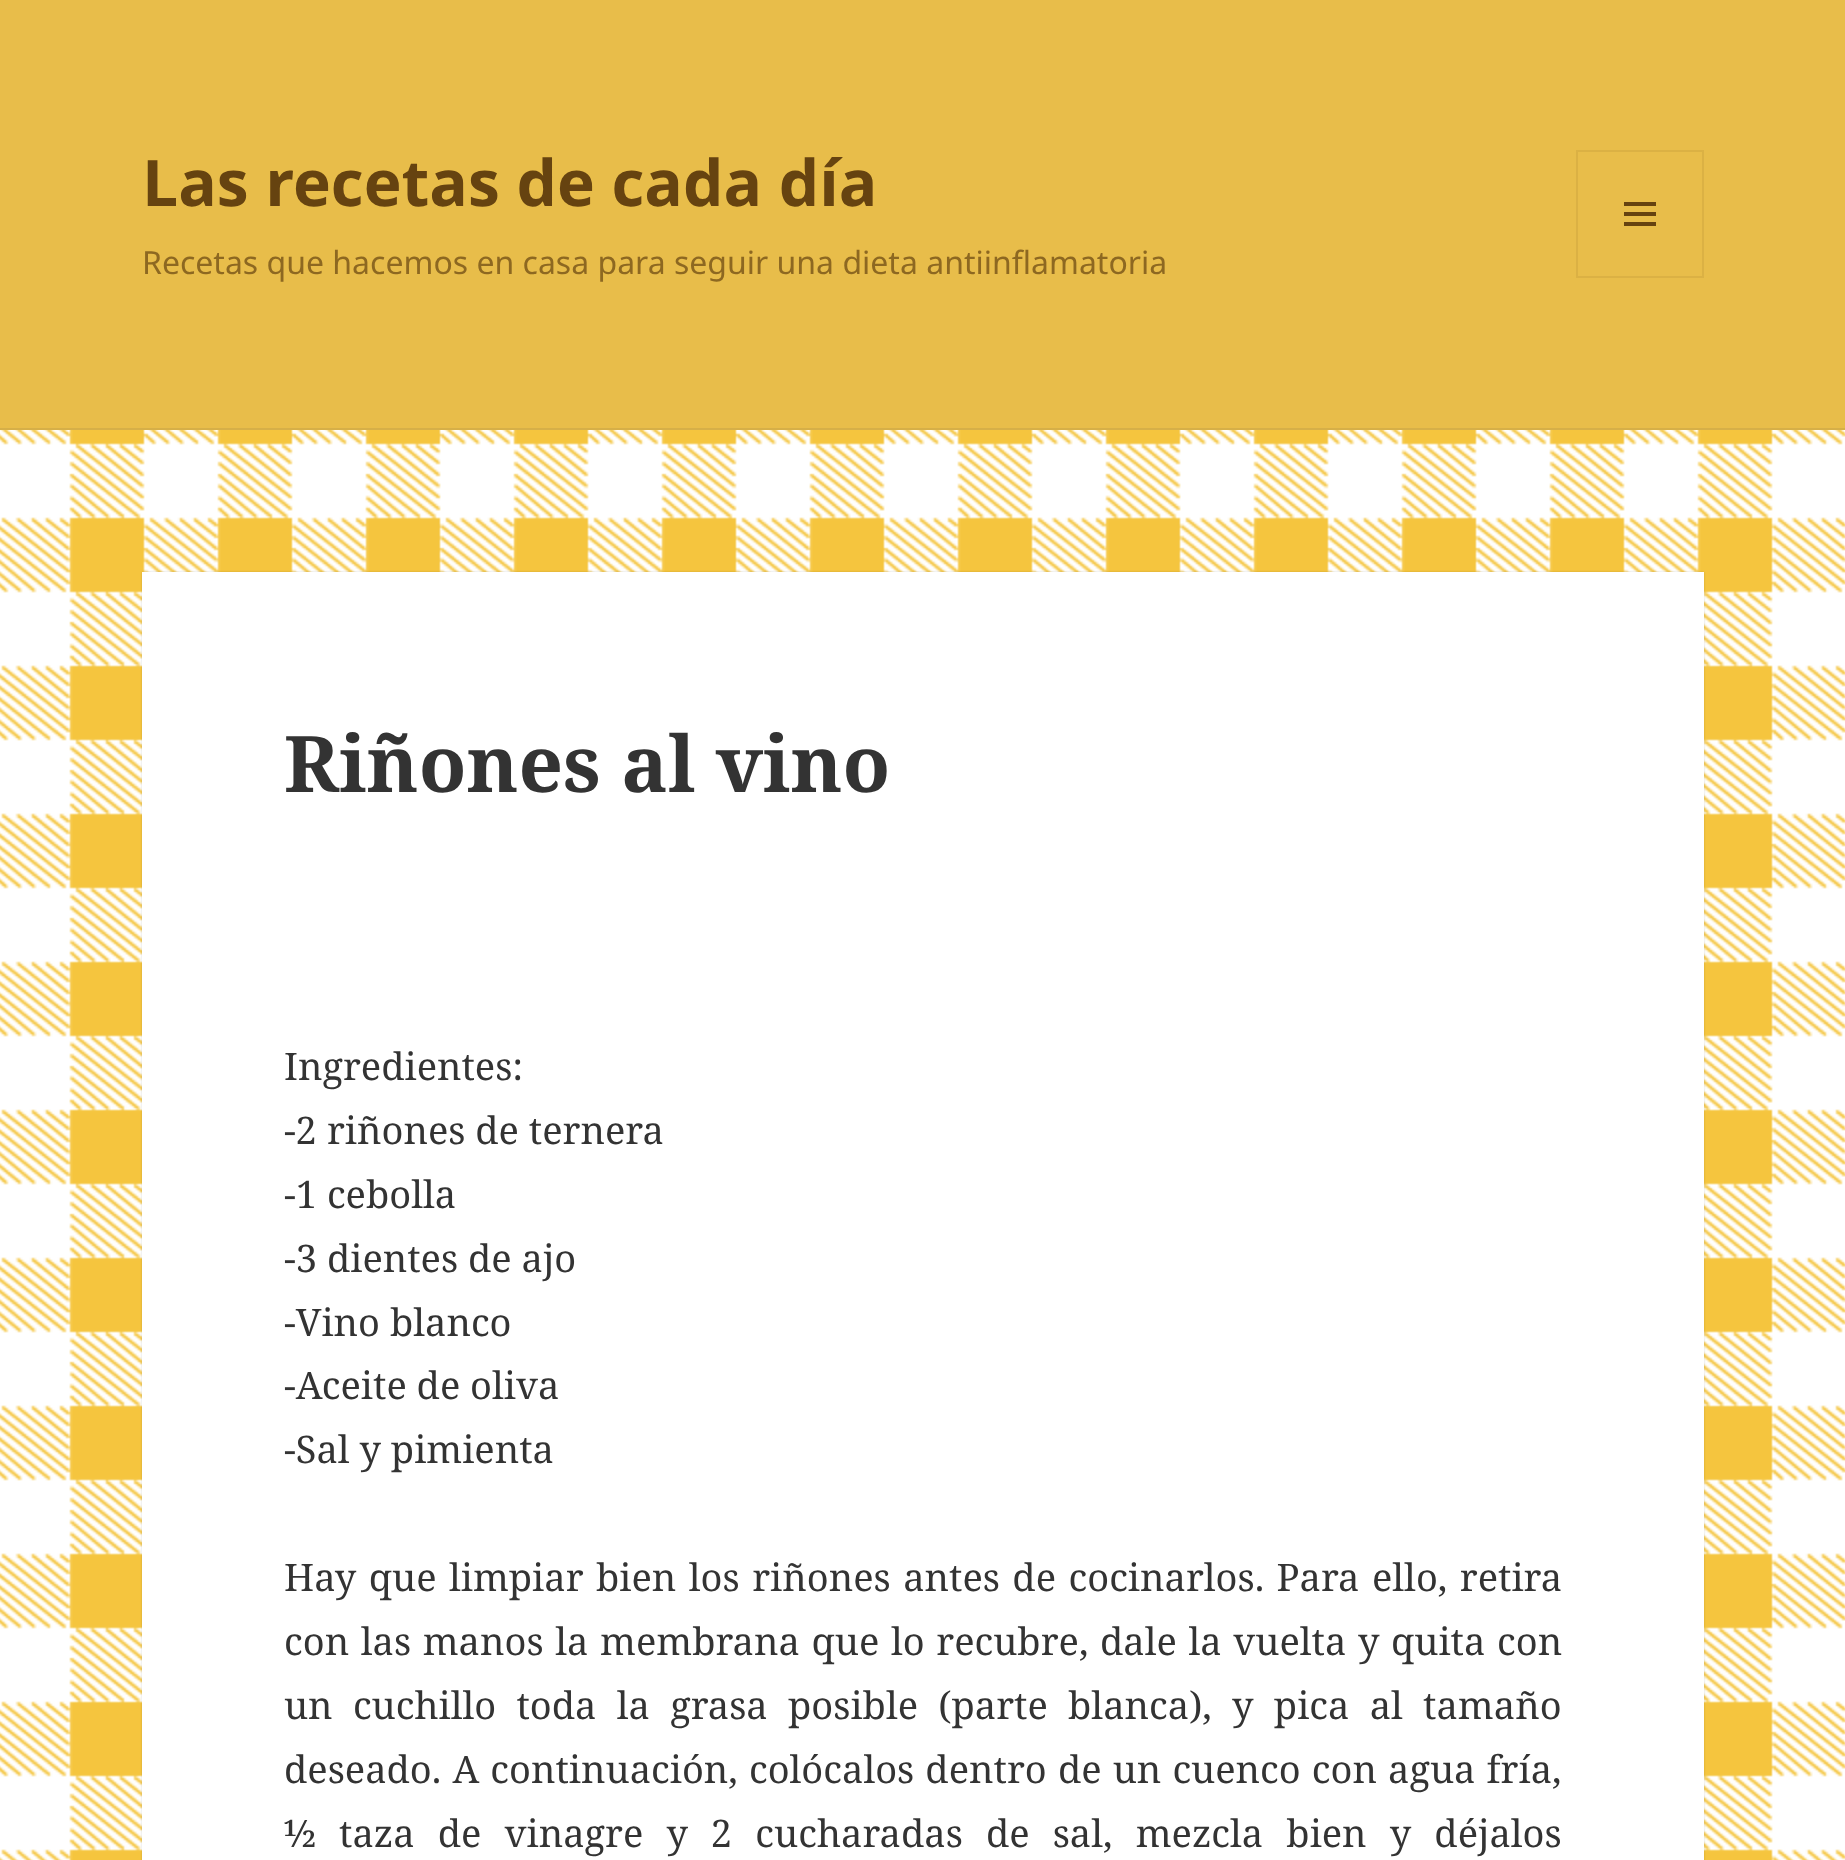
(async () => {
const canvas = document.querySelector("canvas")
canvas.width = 1845
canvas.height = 1860
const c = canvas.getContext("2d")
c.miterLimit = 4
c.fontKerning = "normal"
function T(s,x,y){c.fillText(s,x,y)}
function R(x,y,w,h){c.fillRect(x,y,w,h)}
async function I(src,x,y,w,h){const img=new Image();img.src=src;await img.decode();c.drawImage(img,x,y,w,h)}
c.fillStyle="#fff"
R(0,0,1845,1860)
await I("1.png",0,430,1845,1430)
c.fillStyle="#e8bd4a"
R(0,0,1845,428)
c.fillStyle="#d6af48"
R(0,428,1845,2)
c.font="bold 64px Noto Sans"
c.fillStyle="#664310"
T("Las recetas de cada día",142,206)
c.strokeStyle="#dbb144"
c.lineWidth=2
c.strokeRect(1577,151,126,126)
await I("2.png",1624,202,32,24)
c.font="32px Noto Sans"
c.fillStyle="#8d6821"
T("Recetas que hacemos en casa para seguir una dieta antiinflamatoria",142,274)
c.fillStyle="#00000026"
c.filter="blur(1px)"
c.beginPath()
c.rect(142,572,1562,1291)
c.fill()
c.filter="none"
c.fillStyle="#fff"
R(142,572,1562,1288)
c.font="bold 78px Noto Serif"
c.fillStyle="#333"
T("Riñones al vino",284,792)
c.font="38px Noto Serif"
T("Ingredientes:",284,1080)
T("-2 riñones de ternera",284,1144)
T("-1 cebolla",284,1208)
T("-3 dientes de ajo",284,1272)
T("-Vino blanco",284,1336)
T("-Aceite de oliva",284,1399)
T("-Sal y pimienta",284,1463)
c.wordSpacing="2.6px"
T("Hay que limpiar bien los riñones antes de cocinarlos. Para ello, retira",284,1591)
c.wordSpacing="1.75px"
T("con las manos la membrana que lo recubre, dale la vuelta y quita con",284,1655)
c.wordSpacing="10.4px"
T("un cuchillo toda la grasa posible (parte blanca), y pica al tamaño",284,1719)
c.wordSpacing="1.25px"
T("deseado. A continuación, colócalos dentro de un cuenco con agua fría,",284,1783)
c.wordSpacing="13.25px"
T("½ taza de vinagre y 2 cucharadas de sal, mezcla bien y déjalos",284,1847)
})()
